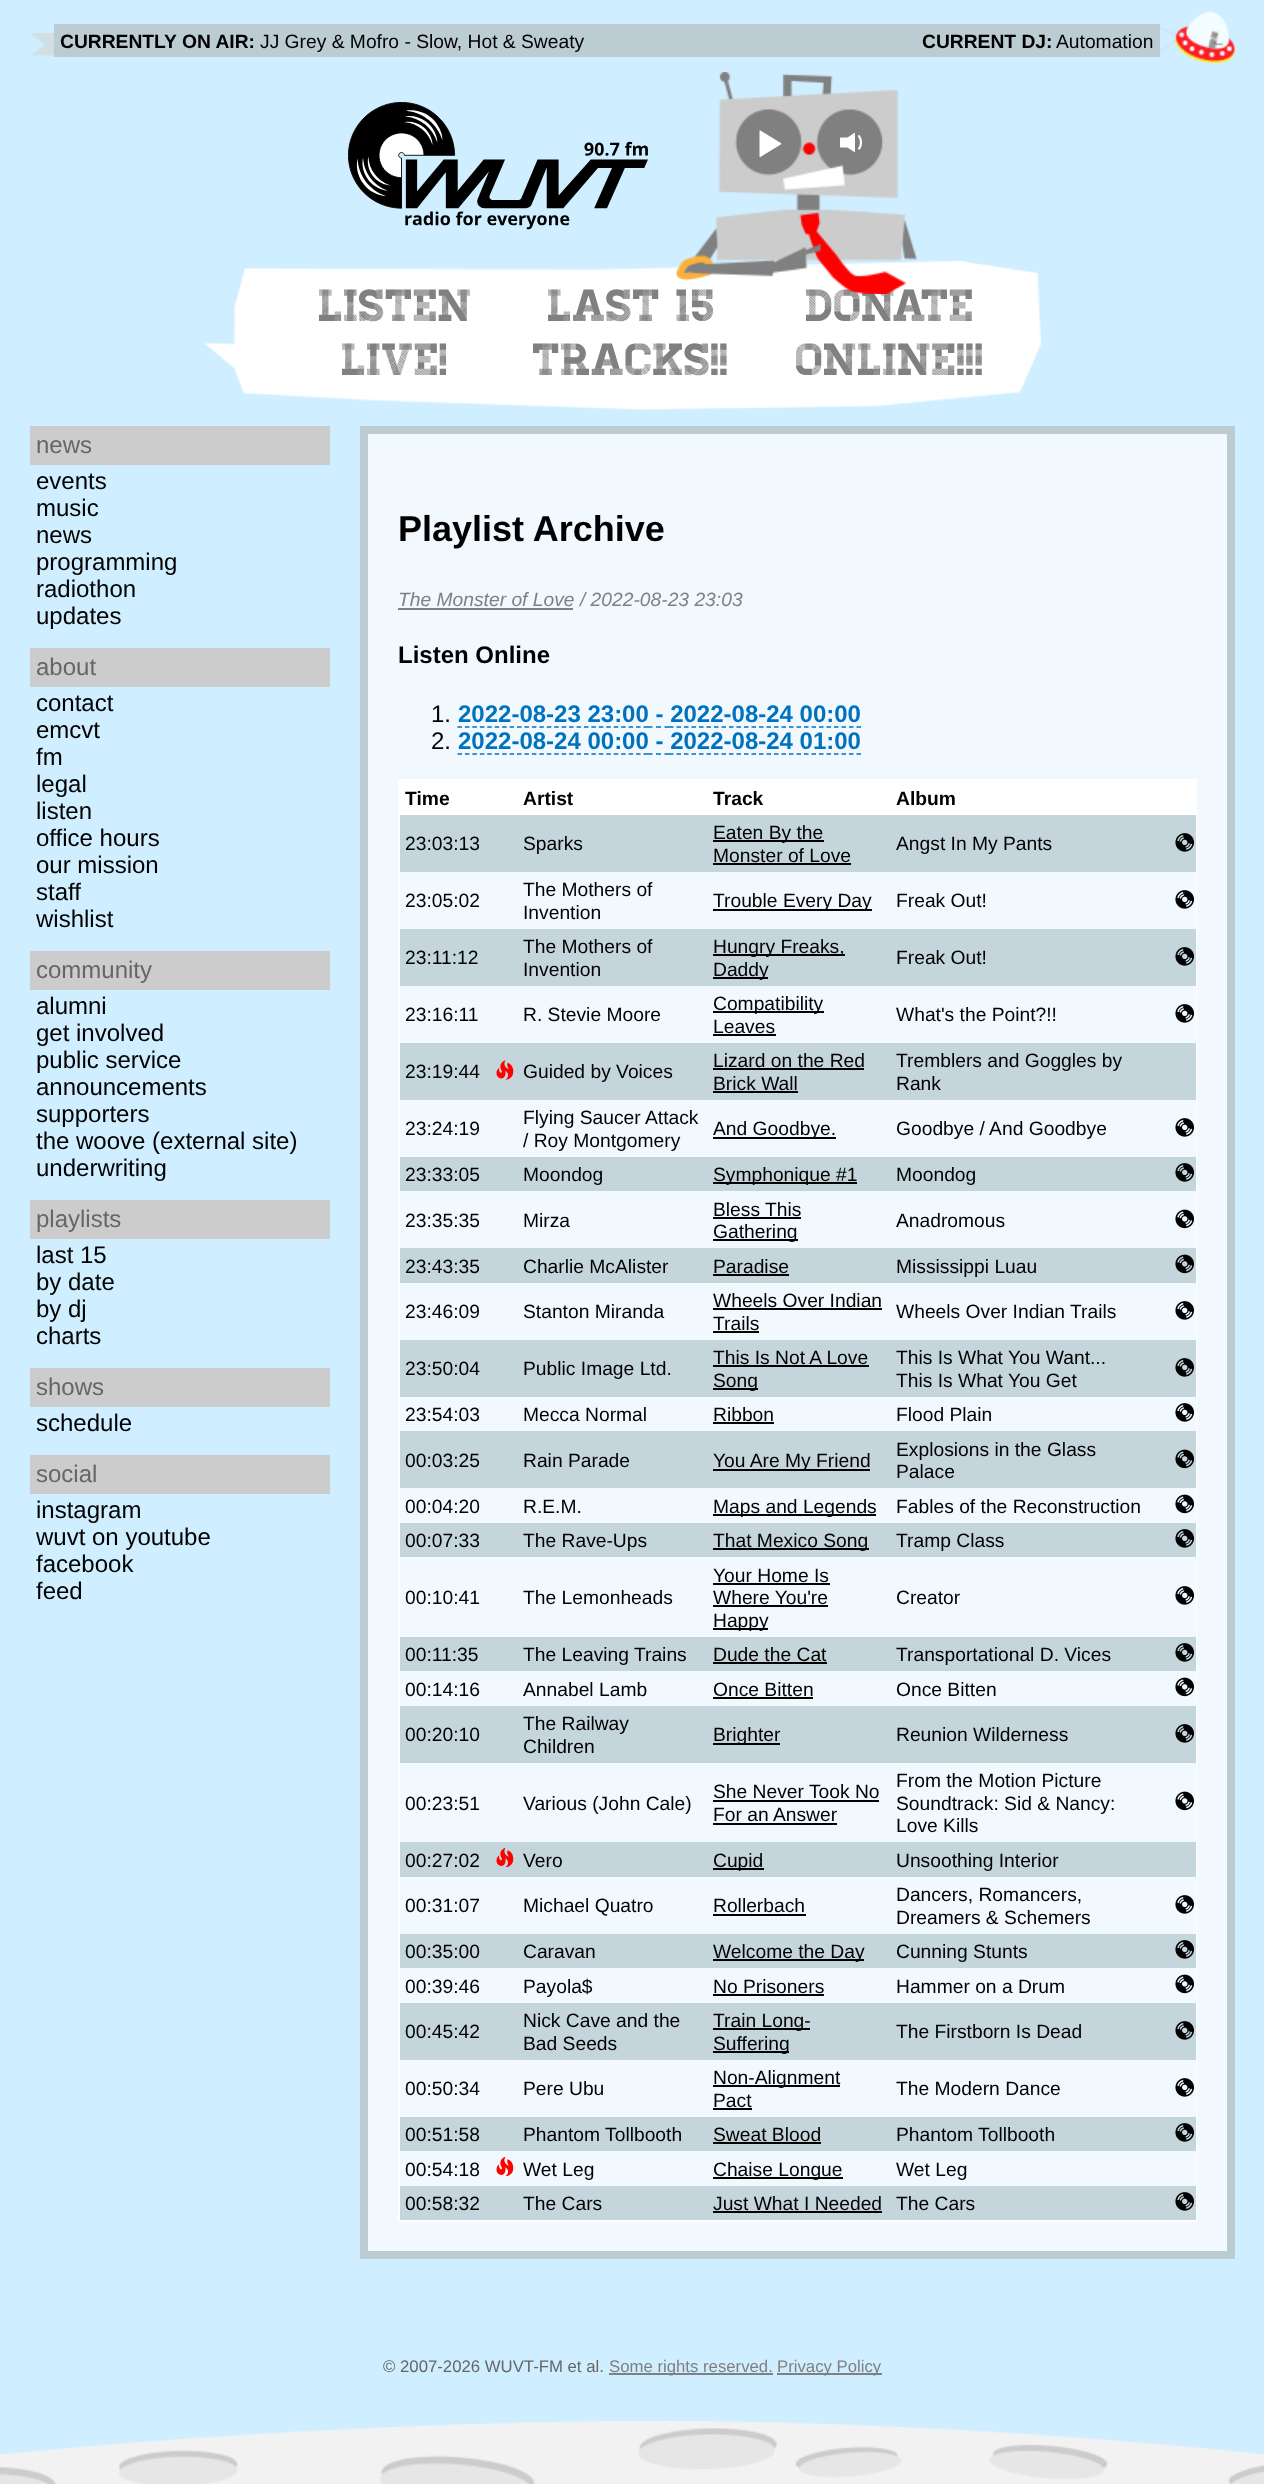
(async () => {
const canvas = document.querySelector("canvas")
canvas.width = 1264
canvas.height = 2484
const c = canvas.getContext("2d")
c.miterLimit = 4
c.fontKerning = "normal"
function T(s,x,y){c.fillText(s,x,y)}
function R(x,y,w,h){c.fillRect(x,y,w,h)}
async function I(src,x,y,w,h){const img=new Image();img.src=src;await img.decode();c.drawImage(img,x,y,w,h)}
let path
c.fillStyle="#cfeeff"
R(0,0,1264,2484)
await I("1.png",0,2421,1264,63)
await I("2.png",30,12,1205,51)
c.fillStyle="#bcccd3"
R(54,24,1106,33)
c.font="bold 19.25px Liberation Sans"
c.fillStyle="#000"
T("CURRENTLY ON AIR:",60,48)
c.font="19.25px Liberation Sans"
T("JJ Grey & Mofro - Slow, Hot & Sweaty",260,48)
c.font="bold 19.25px Liberation Sans"
T("CURRENT DJ:",922,48)
c.font="19.25px Liberation Sans"
T("Automation",1056,48)
await I("3.png",348,102,300,128)
await I("7.png",204,261,837,149)
c.font="45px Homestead"
c.fillStyle="#808080"
T("LAST 15",548,321)
T("DONATE",806,321)
await I("4.png",676,72,241,222)
await I("5.png",759,130,23,27)
await I("6.png",840,132,22,21)
T("LISTEN",319,321)
T("LIVE!",342,375)
T("TRACKS!!",533,375)
T("ONLINE!!!",796,375)
c.fillStyle="#ccc"
R(30,426,300,39)
c.font="24px Liberation Sans"
c.fillStyle="#666"
T("news",36,453)
c.fillStyle="#000"
T("events",36,489)
T("music",36,516)
T("news",36,543)
T("programming",36,570)
T("radiothon",36,597)
T("updates",36,624)
c.fillStyle="#ccc"
R(30,648,300,39)
c.fillStyle="#666"
T("about",36,675)
c.fillStyle="#000"
T("contact",36,711)
T("emcvt",36,738)
T("fm",36,765)
T("legal",36,792)
T("listen",36,819)
T("office hours",36,846)
T("our mission",36,873)
T("staff",36,900)
T("wishlist",36,927)
c.fillStyle="#ccc"
R(30,951,300,39)
c.fillStyle="#666"
T("community",36,978)
c.fillStyle="#000"
T("alumni",36,1014)
T("get involved",36,1041)
T("public service",36,1068)
T("announcements",36,1095)
T("supporters",36,1122)
T("the woove (external site)",36,1149)
T("underwriting",36,1176)
c.fillStyle="#ccc"
R(30,1200,300,39)
c.fillStyle="#666"
T("playlists",36,1227)
c.fillStyle="#000"
T("last 15",36,1263)
T("by date",36,1290)
T("by dj",36,1317)
T("charts",36,1344)
c.fillStyle="#ccc"
R(30,1368,300,39)
c.fillStyle="#666"
T("shows",36,1395)
c.fillStyle="#000"
T("schedule",36,1431)
c.fillStyle="#ccc"
R(30,1455,300,39)
c.fillStyle="#666"
T("social",36,1482)
c.fillStyle="#000"
T("instagram",36,1518)
T("wuvt on youtube",36,1545)
T("facebook",36,1572)
T("feed",36,1599)
c.fillStyle="#f1f9ff"
c.beginPath()
c.rect(364,430,867,1825)
c.fill()
c.strokeStyle="#bcccd3"
c.lineWidth=8
c.stroke()
c.font="bold 36px Liberation Sans"
c.fillStyle="#000"
T("Playlist Archive",398,541)
c.font="italic 19.25px Liberation Sans"
c.fillStyle="#808080"
T("The Monster of Love / 2022-08-23 23:03",398,606)
R(398,608,175,2)
c.font="bold 24px Liberation Sans"
c.fillStyle="#000"
T("Listen Online",398,663)
c.font="24px Liberation Sans"
T("1.",431,722)
c.font="bold 24px Liberation Sans"
c.fillStyle="#0071bc"
T("2022-08-23 23:00 - 2022-08-24 00:00",458,722)
path = new Path2D("M457.5 727h190.5")
c.strokeStyle="#0071bc"
c.lineWidth=1.5
c.setLineDash([4.5,2.94])
c.stroke(path)
path = new Path2D("M648 727h4.5m3.5 0h5m3.5 0h4.5")
c.setLineDash([])
c.stroke(path)
path = new Path2D("M669 727h192")
c.setLineDash([4.5,3])
c.stroke(path)
c.font="24px Liberation Sans"
c.fillStyle="#000"
T("2.",431,749)
c.font="bold 24px Liberation Sans"
c.fillStyle="#0071bc"
T("2022-08-24 00:00 - 2022-08-24 01:00",458,749)
path = new Path2D("M457.5 754h190.5")
c.setLineDash([4.5,2.94])
c.stroke(path)
path = new Path2D("M648 754h4.5m3.5 0h5m3.5 0h4.5")
c.setLineDash([])
c.stroke(path)
path = new Path2D("M669 754h192")
c.setLineDash([4.5,3])
c.stroke(path)
c.fillStyle="#fff"
R(398,779,799,2)
R(1196,779,1,1443)
R(398,2220,799,2)
R(398,779,2,1443)
R(400,781,796,34)
c.font="bold 19.25px Liberation Sans"
c.fillStyle="#000"
T("Time",405,805)
T("Artist",523,805)
T("Track",713,805)
T("Album",896,805)
c.fillStyle="#c5d5dc"
R(400,815,796,57)
c.font="19.25px Liberation Sans"
c.fillStyle="#000"
T("23:03:13",405,850)
T("Sparks",523,850)
R(713,840,111,2)
T("Eaten By the",713,839)
T("Monster of Love",713,862)
R(713,863,138,2)
T("Angst In My Pants",896,850)
await I("8.png",1175,833,19,19)
T("23:05:02",405,907)
T("The Mothers of",523,896)
T("Invention",523,919)
R(713,909,159,2)
T("Trouble Every Day",713,907)
T("Freak Out!",896,907)
await I("9.png",1175,890,19,19)
c.fillStyle="#c5d5dc"
R(400,929,796,57)
c.fillStyle="#000"
T("23:11:12",405,964)
T("The Mothers of",523,953)
T("Invention",523,976)
R(713,954,132,2)
T("Hungry Freaks,",713,953)
R(713,977,55,2)
T("Daddy",713,976)
T("Freak Out!",896,964)
await I("8.png",1175,947,19,19)
T("23:16:11",405,1021)
T("R. Stevie Moore",523,1021)
R(713,1011,111,2)
T("Compatibility",713,1010)
T("Leaves",713,1033)
R(713,1034,63,2)
T("What's the Point?!!",896,1021)
await I("9.png",1175,1004,19,19)
c.fillStyle="#c5d5dc"
R(400,1043,796,57)
c.fillStyle="#000"
T("23:19:44",405,1078)
await I("10.png",496,1060,18,20)
T("Guided by Voices",523,1078)
T("Lizard on the Red",713,1067)
R(713,1068,151,2)
T("Brick Wall",713,1090)
R(713,1091,85,2)
T("Tremblers and Goggles by",896,1067)
T("Rank",896,1090)
T("23:24:19",405,1135)
T("Flying Saucer Attack",523,1124)
T("/ Roy Montgomery",523,1147)
R(713,1137,123,2)
T("And Goodbye.",713,1135)
T("Goodbye / And Goodbye",896,1135)
await I("9.png",1175,1118,19,19)
c.fillStyle="#c5d5dc"
R(400,1157,796,34)
c.fillStyle="#000"
T("23:33:05",405,1181)
T("Moondog",523,1181)
R(713,1182,144,2)
T("Symphonique #1",713,1181)
T("Moondog",896,1181)
await I("8.png",1175,1163,19,19)
T("23:35:35",405,1227)
T("Mirza",523,1227)
T("Bless This",713,1216)
R(713,1217,88,2)
R(713,1239,85,2)
T("Gathering",713,1238)
T("Anadromous",896,1227)
await I("11.png",1175,1209,19,20)
c.fillStyle="#c5d5dc"
R(400,1248,796,35)
c.fillStyle="#000"
T("23:43:35",405,1273)
T("Charlie McAlister",523,1273)
T("Paradise",713,1273)
R(713,1274,76,2)
T("Mississippi Luau",896,1273)
await I("12.png",1175,1254,19,20)
T("23:46:09",405,1318)
T("Stanton Miranda",523,1318)
T("Wheels Over Indian",713,1307)
R(713,1308,169,2)
T("Trails",713,1330)
R(713,1331,46,2)
T("Wheels Over Indian Trails",896,1318)
await I("9.png",1175,1301,19,19)
c.fillStyle="#c5d5dc"
R(400,1340,796,57)
c.fillStyle="#000"
T("23:50:04",405,1375)
T("Public Image Ltd.",523,1375)
T("This Is Not A Love",713,1364)
R(713,1365,156,2)
R(713,1388,45,2)
T("Song",713,1387)
T("This Is What You Want...",896,1364)
T("This Is What You Get",896,1387)
await I("8.png",1175,1358,19,19)
T("23:54:03",405,1421)
T("Mecca Normal",523,1421)
T("Ribbon",713,1421)
R(713,1422,61,2)
T("Flood Plain",896,1421)
await I("9.png",1175,1403,19,19)
c.fillStyle="#c5d5dc"
R(400,1431,796,57)
c.fillStyle="#000"
T("00:03:25",405,1467)
T("Rain Parade",523,1467)
R(713,1469,157,2)
T("You Are My Friend",713,1467)
T("Explosions in the Glass",896,1456)
T("Palace",896,1478)
await I("12.png",1175,1449,19,20)
T("00:04:20",405,1513)
T("R.E.M.",523,1513)
R(713,1514,163,2)
T("Maps and Legends",713,1513)
T("Fables of the Reconstruction",896,1513)
await I("11.png",1175,1494,19,20)
c.fillStyle="#c5d5dc"
R(400,1523,796,34)
c.fillStyle="#000"
T("00:07:33",405,1547)
T("The Rave-Ups",523,1547)
R(713,1548,156,2)
T("That Mexico Song",713,1547)
T("Tramp Class",896,1547)
await I("8.png",1175,1529,19,19)
T("00:10:41",405,1604)
T("The Lemonheads",523,1604)
T("Your Home Is",713,1582)
R(713,1583,117,2)
T("Where You're",713,1604)
R(713,1605,115,2)
R(713,1628,55,2)
T("Happy",713,1627)
T("Creator",896,1604)
await I("9.png",1175,1586,19,19)
c.fillStyle="#c5d5dc"
R(400,1637,796,34)
c.fillStyle="#000"
T("00:11:35",405,1661)
T("The Leaving Trains",523,1661)
T("Dude the Cat",713,1661)
R(713,1662,114,2)
T("Transportational D. Vices",896,1661)
await I("8.png",1175,1643,19,19)
T("00:14:16",405,1696)
T("Annabel Lamb",523,1696)
T("Once Bitten",713,1696)
R(713,1697,100,2)
T("Once Bitten",896,1696)
await I("11.png",1175,1677,19,20)
c.fillStyle="#c5d5dc"
R(400,1706,796,57)
c.fillStyle="#000"
T("00:20:10",405,1741)
T("The Railway",523,1730)
T("Children",523,1753)
R(713,1743,67,2)
T("Brighter",713,1741)
T("Reunion Wilderness",896,1741)
await I("8.png",1175,1724,19,19)
T("00:23:51",405,1810)
T("Various (John Cale)",523,1810)
T("She Never Took No",713,1798)
R(713,1800,166,2)
T("For an Answer",713,1821)
R(713,1823,124,2)
T("From the Motion Picture",896,1787)
T("Soundtrack: Sid & Nancy:",896,1810)
T("Love Kills",896,1832)
await I("11.png",1175,1791,19,20)
c.fillStyle="#c5d5dc"
R(400,1842,796,35)
c.fillStyle="#000"
T("00:27:02",405,1867)
await I("13.png",496,1847,18,21)
T("Vero",523,1867)
R(713,1868,51,2)
T("Cupid",713,1867)
T("Unsoothing Interior",896,1867)
T("00:31:07",405,1912)
T("Michael Quatro",523,1912)
T("Rollerbach",713,1912)
R(713,1914,93,2)
T("Dancers, Romancers,",896,1901)
T("Dreamers & Schemers",896,1924)
await I("9.png",1175,1895,19,19)
c.fillStyle="#c5d5dc"
R(400,1934,796,34)
c.fillStyle="#000"
T("00:35:00",405,1958)
T("Caravan",523,1958)
R(713,1959,151,2)
T("Welcome the Day",713,1958)
T("Cunning Stunts",896,1958)
await I("8.png",1175,1940,19,19)
T("00:39:46",405,1993)
T("Payola$",523,1993)
T("No Prisoners",713,1993)
R(713,1994,111,2)
T("Hammer on a Drum",896,1993)
await I("11.png",1175,1974,19,20)
c.fillStyle="#c5d5dc"
R(400,2003,796,57)
c.fillStyle="#000"
T("00:45:42",405,2038)
T("Nick Cave and the",523,2027)
T("Bad Seeds",523,2050)
R(713,2028,97,2)
T("Train Long-",713,2027)
R(713,2051,76,2)
T("Suffering",713,2050)
T("The Firstborn Is Dead",896,2038)
await I("8.png",1175,2021,19,19)
T("00:50:34",405,2095)
T("Pere Ubu",523,2095)
R(713,2085,127,2)
T("Non-Alignment",713,2084)
T("Pact",713,2107)
R(713,2108,39,2)
T("The Modern Dance",896,2095)
await I("9.png",1175,2078,19,19)
c.fillStyle="#c5d5dc"
R(400,2117,796,34)
c.fillStyle="#000"
T("00:51:58",405,2141)
T("Phantom Tollbooth",523,2141)
T("Sweat Blood",713,2141)
R(713,2142,108,2)
T("Phantom Tollbooth",896,2141)
await I("8.png",1175,2123,19,19)
T("00:54:18",405,2176)
await I("14.png",496,2156,18,21)
T("Wet Leg",523,2176)
R(713,2177,130,2)
T("Chaise Longue",713,2176)
T("Wet Leg",896,2176)
c.fillStyle="#c5d5dc"
R(400,2186,796,34)
c.fillStyle="#000"
T("00:58:32",405,2210)
T("The Cars",523,2210)
T("Just What I Needed",713,2210)
R(713,2211,169,2)
T("The Cars",896,2210)
await I("8.png",1175,2192,19,19)
c.font="16.75px Liberation Sans"
c.fillStyle="#666"
T("© 2007-2026 WUVT-FM et al.",383,2372)
c.fillStyle="#808080"
R(609,2373,164,2)
T("Some rights reserved.",609,2372)
R(777,2373,105,2)
T("Privacy Policy",777,2372)
})()
